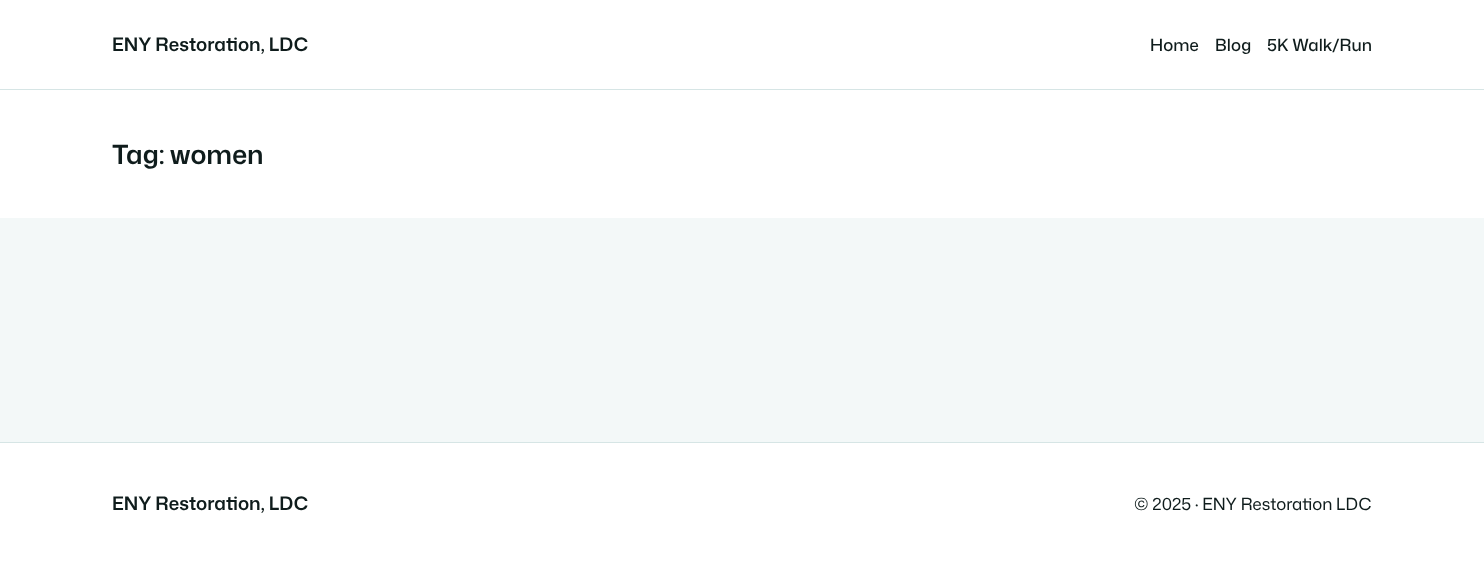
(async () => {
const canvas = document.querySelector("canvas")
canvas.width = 1484
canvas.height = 578
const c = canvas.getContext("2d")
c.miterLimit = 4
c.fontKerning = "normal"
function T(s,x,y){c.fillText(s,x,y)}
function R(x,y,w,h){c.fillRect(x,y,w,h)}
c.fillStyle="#fff"
R(0,0,1484,578)
c.fillStyle="#d6e5e5"
R(0,89,1484,1)
c.font="600 18.6px Mona Sans"
c.fillStyle="#0f1c1c"
T("ENY Restoration, LDC",112,51)
c.font="500 16.75px Mona Sans"
T("Home",1150,51)
T("Blog",1215,51)
T("5K Walk/Run",1267,51)
c.font="600 26.5px Mona Sans"
T("Tag: women",112,164)
c.fillStyle="#f3f8f8"
R(0,218,1484,224)
c.fillStyle="#d6e5e5"
R(0,442,1484,1)
c.font="600 18.6px Mona Sans"
c.fillStyle="#0f1c1c"
T("ENY Restoration, LDC",112,510)
c.font="16.75px Mona Sans"
T("© 2025 · ENY Restoration LDC",1134,510)
})()
